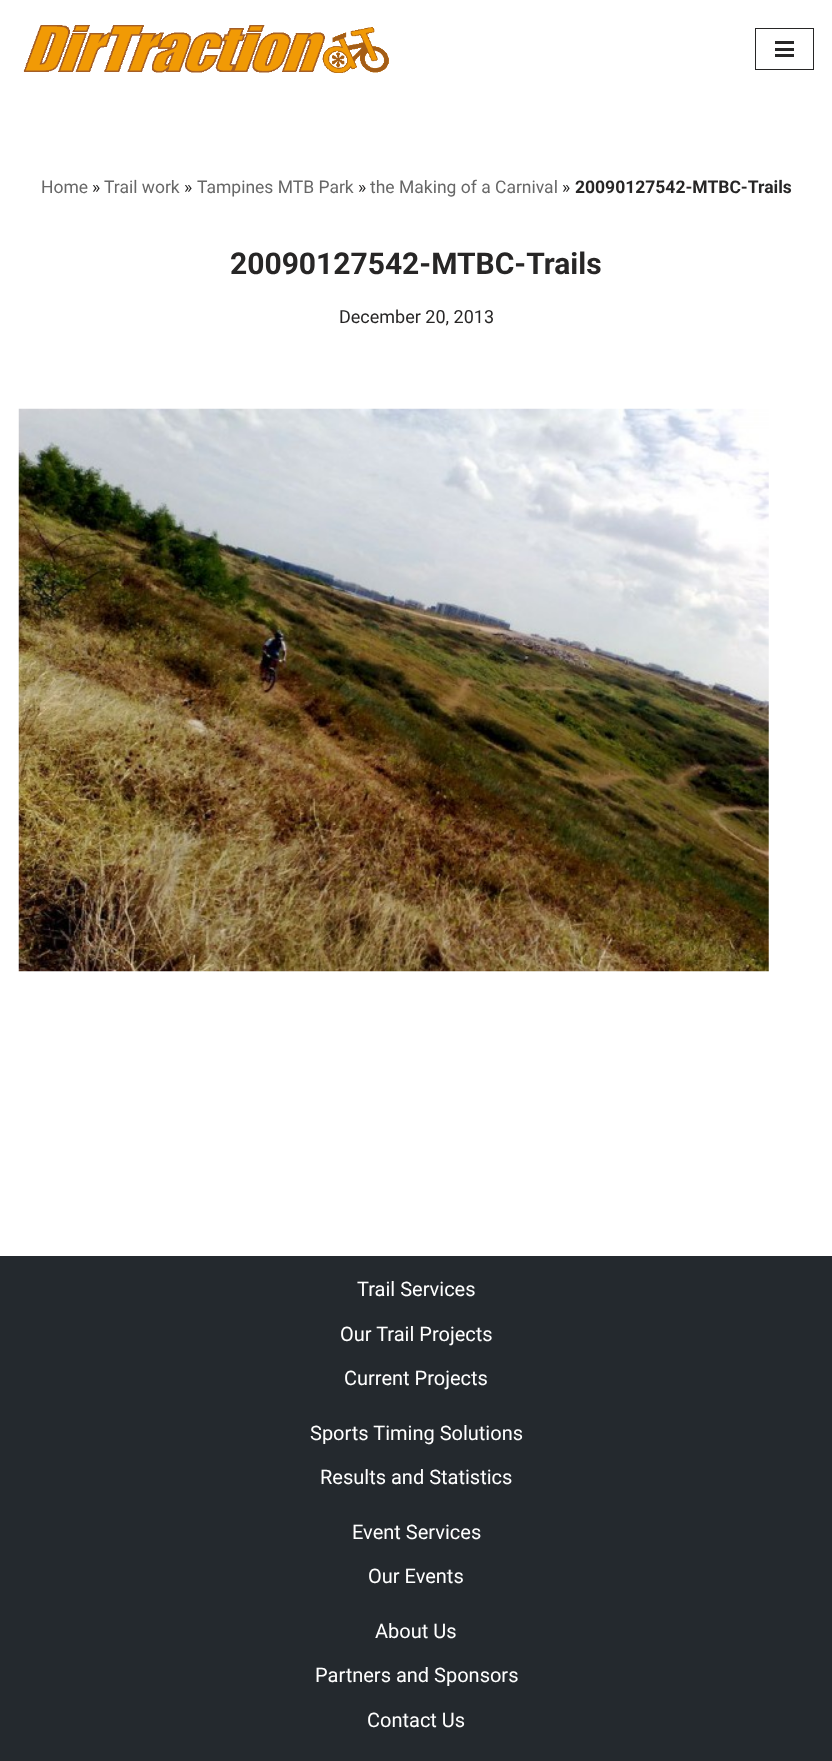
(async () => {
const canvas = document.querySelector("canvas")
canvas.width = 832
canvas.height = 1761
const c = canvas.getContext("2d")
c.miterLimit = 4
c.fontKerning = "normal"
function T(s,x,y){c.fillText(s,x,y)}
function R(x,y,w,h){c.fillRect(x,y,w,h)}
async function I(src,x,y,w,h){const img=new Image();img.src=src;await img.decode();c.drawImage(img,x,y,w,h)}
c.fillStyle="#fff"
R(0,0,832,1761)
await I("1.png",23,25,366,48)
c.strokeStyle="#272626"
c.strokeRect(755.5,28.5,58,41)
c.fillStyle="#272626"
R(775,41,19,3)
R(775,48,19,3)
R(775,54,19,3)
c.font="17.5px Roboto"
c.fillStyle="#676767"
T("Home",41,193)
c.fillStyle="#272626"
T("»",92,193)
c.fillStyle="#676767"
T("Trail work",104,193)
c.fillStyle="#272626"
T("»",184,193)
c.fillStyle="#676767"
T("Tampines MTB Park",197,193)
c.fillStyle="#272626"
T("»",358,193)
c.fillStyle="#676767"
T("the Making of a Carnival",370,193)
c.fillStyle="#272626"
T("»",562,193)
c.font="bold 17.5px Roboto"
T("20090127542-MTBC-Trails",575,193)
c.font="bold 30px Roboto"
T("20090127542-MTBC-Trails",230,274)
c.font="18px Roboto"
T("December 20, 2013",339,323)
await I("2.png",18,408,751,564)
c.fillStyle="#24292e"
R(0,1256,832,505)
c.font="20px Roboto"
c.fillStyle="#fff"
T("Trail Services",357,1296)
T("Our Trail Projects",340,1341)
T("Current Projects",344,1385)
T("Sports Timing Solutions",310,1440)
T("Results and Statistics",320,1484)
T("Event Services",352,1539)
T("Our Events",368,1583)
T("About Us",375,1638)
T("Partners and Sponsors",315,1682)
T("Contact Us",367,1727)
})()
